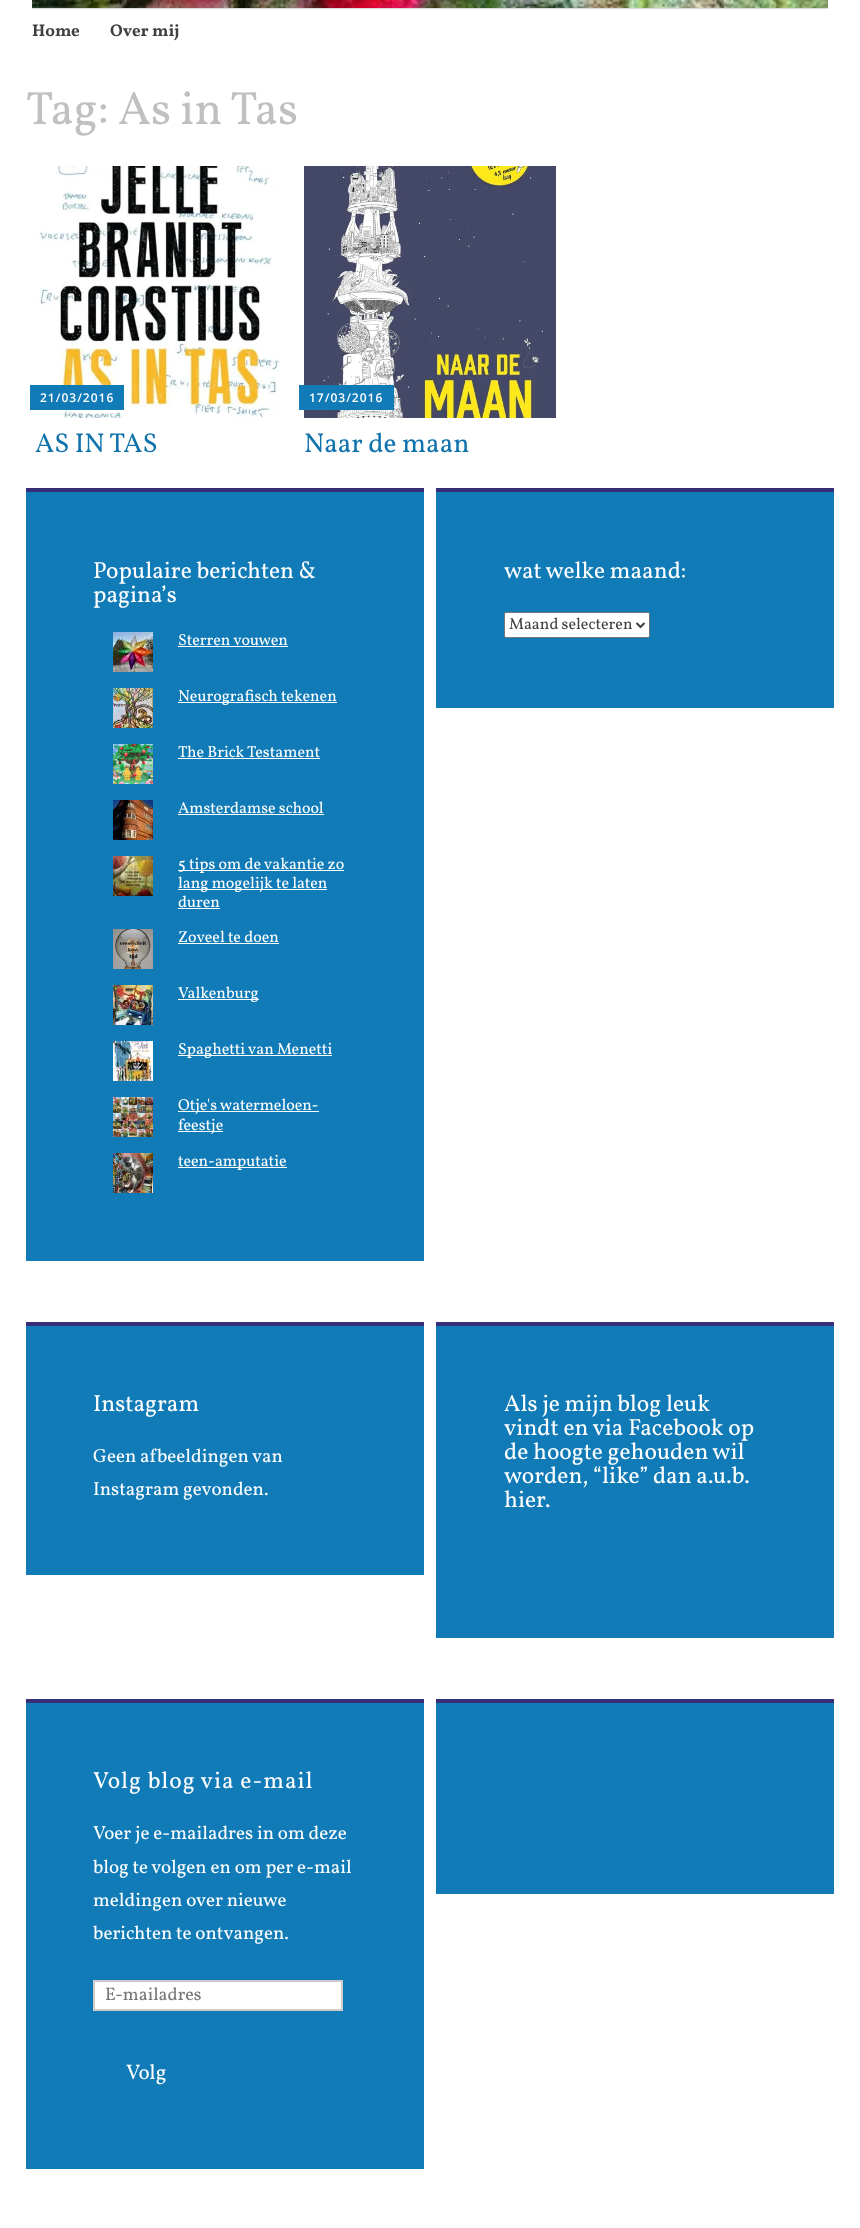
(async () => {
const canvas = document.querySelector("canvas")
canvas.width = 860
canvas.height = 2228
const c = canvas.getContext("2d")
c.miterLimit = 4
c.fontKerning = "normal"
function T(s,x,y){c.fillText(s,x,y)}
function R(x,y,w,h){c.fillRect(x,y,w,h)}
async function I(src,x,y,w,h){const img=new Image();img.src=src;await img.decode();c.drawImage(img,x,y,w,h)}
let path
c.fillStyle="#fff"
R(0,0,860,2228)
await I("1.png",32,0,796,8)
c.fillStyle="#d9d9d9"
R(32,8,796,1)
c.font="bold 17px Vollkorn"
c.fillStyle="#404040"
T("Home",32,36)
T("Over mij",110,36)
c.font="46.75px Vollkorn"
c.fillStyle="#c0c0c0"
T("Tag: As in Tas",26,124)
await I("2.png",38,166,243,252)
c.fillStyle="#117bb8"
R(30,385,94,25)
c.letterSpacing="1px"
c.font="600 12px Open Sans"
c.fillStyle="#fff"
T("21/03/2016",40,402)
c.letterSpacing="0px"
c.font="27.25px Vollkorn"
c.fillStyle="#1073ac"
T("AS IN TAS",35,452)
await I("3.png",304,166,252,252)
c.fillStyle="#117bb8"
R(299,385,95,25)
c.letterSpacing="1px"
c.font="600 12px Open Sans"
c.fillStyle="#fff"
T("17/03/2016",309,402)
c.letterSpacing="0px"
c.font="27.25px Vollkorn"
c.fillStyle="#1073ac"
T("Naar de maan",304,452)
c.fillStyle="#117bb8"
R(26,492,398,769)
c.fillStyle="#362e77"
R(26,488,398,4)
c.font="23.4px Vollkorn"
c.fillStyle="#fff"
T("Populaire berichten &",93,578)
T("pagina’s",93,602)
await I("4.png",113,632,40,40)
c.font="16px Vollkorn"
T("Sterren vouwen",178,645)
R(178,646,110,1)
await I("5.png",113,688,40,40)
R(178,702,159,1)
T("Neurografisch tekenen",178,701)
await I("6.png",113,744,40,40)
T("The Brick Testament",178,757)
R(178,758,142,1)
await I("7.png",113,800,40,40)
T("Amsterdamse school",178,813)
R(178,814,146,1)
await I("8.png",113,856,40,40)
R(178,870,166,1)
T("5 tips om de vakantie zo",178,869)
R(178,889,149,1)
T("lang mogelijk te laten",178,888)
T("duren",178,907)
R(178,908,42,1)
await I("9.png",113,929,40,40)
T("Zoveel te doen",178,942)
R(178,943,101,1)
await I("10.png",113,985,40,40)
R(178,999,81,1)
T("Valkenburg",178,998)
await I("11.png",113,1041,40,40)
R(178,1055,154,1)
T("Spaghetti van Menetti",178,1054)
await I("12.png",113,1097,40,40)
R(178,1111,141,1)
T("Otje's watermeloen-",178,1110)
R(178,1131,45,1)
T("feestje",178,1130)
await I("13.png",113,1153,40,40)
R(178,1167,109,1)
T("teen-amputatie",178,1166)
c.fillStyle="#117bb8"
R(436,492,398,216)
c.fillStyle="#362e77"
R(436,488,398,4)
c.font="23.4px Vollkorn"
c.fillStyle="#fff"
T("wat welke maand:",504,578)
c.beginPath()
c.roundRect(504.5,612.5,145,25,1.5)
c.fill()
c.strokeStyle="#767676"
c.stroke()
path = new Path2D("M636.5 623l4 4l4-4")
c.strokeStyle="#404040"
c.lineWidth=2
c.stroke(path)
c.font="16px Vollkorn"
c.fillStyle="#404040"
T("Maand selecteren",509,629)
c.fillStyle="#117bb8"
R(26,1326,398,249)
c.fillStyle="#362e77"
R(26,1322,398,4)
c.font="23.4px Vollkorn"
c.fillStyle="#fff"
T("Instagram",93,1411)
c.font="19px Vollkorn"
T("Geen afbeeldingen van",93,1462)
T("Instagram gevonden.",93,1495)
c.fillStyle="#117bb8"
R(436,1326,398,312)
c.fillStyle="#362e77"
R(436,1322,398,4)
c.font="23.4px Vollkorn"
c.fillStyle="#fff"
T("Als je mijn blog leuk",504,1411)
T("vindt en via Facebook op",504,1435)
T("de hoogte gehouden wil",504,1459)
T("worden, “like” dan a.u.b.",504,1483)
T("hier.",504,1507)
c.fillStyle="#117bb8"
R(26,1703,398,466)
c.fillStyle="#362e77"
R(26,1699,398,4)
c.letterSpacing="1px"
c.fillStyle="#fff"
T("Volg blog via e-mail",93,1788)
c.letterSpacing="0px"
c.font="19px Vollkorn"
T("Voer je e-mailadres in om deze",93,1839)
T("blog te volgen en om per e-mail",93,1873)
T("meldingen over nieuwe",93,1906)
T("berichten te ontvangen.",93,1939)
c.beginPath()
c.rect(94,1981,248,29)
c.fill()
c.strokeStyle="#ccc"
c.stroke()
c.font="18px Vollkorn"
c.fillStyle="#757575"
T("E-mailadres",105,2000)
c.font="21px Vollkorn"
c.fillStyle="#fff"
T("Volg",126,2079)
c.fillStyle="#117bb8"
R(436,1703,398,191)
c.fillStyle="#362e77"
R(436,1699,398,4)
})()
